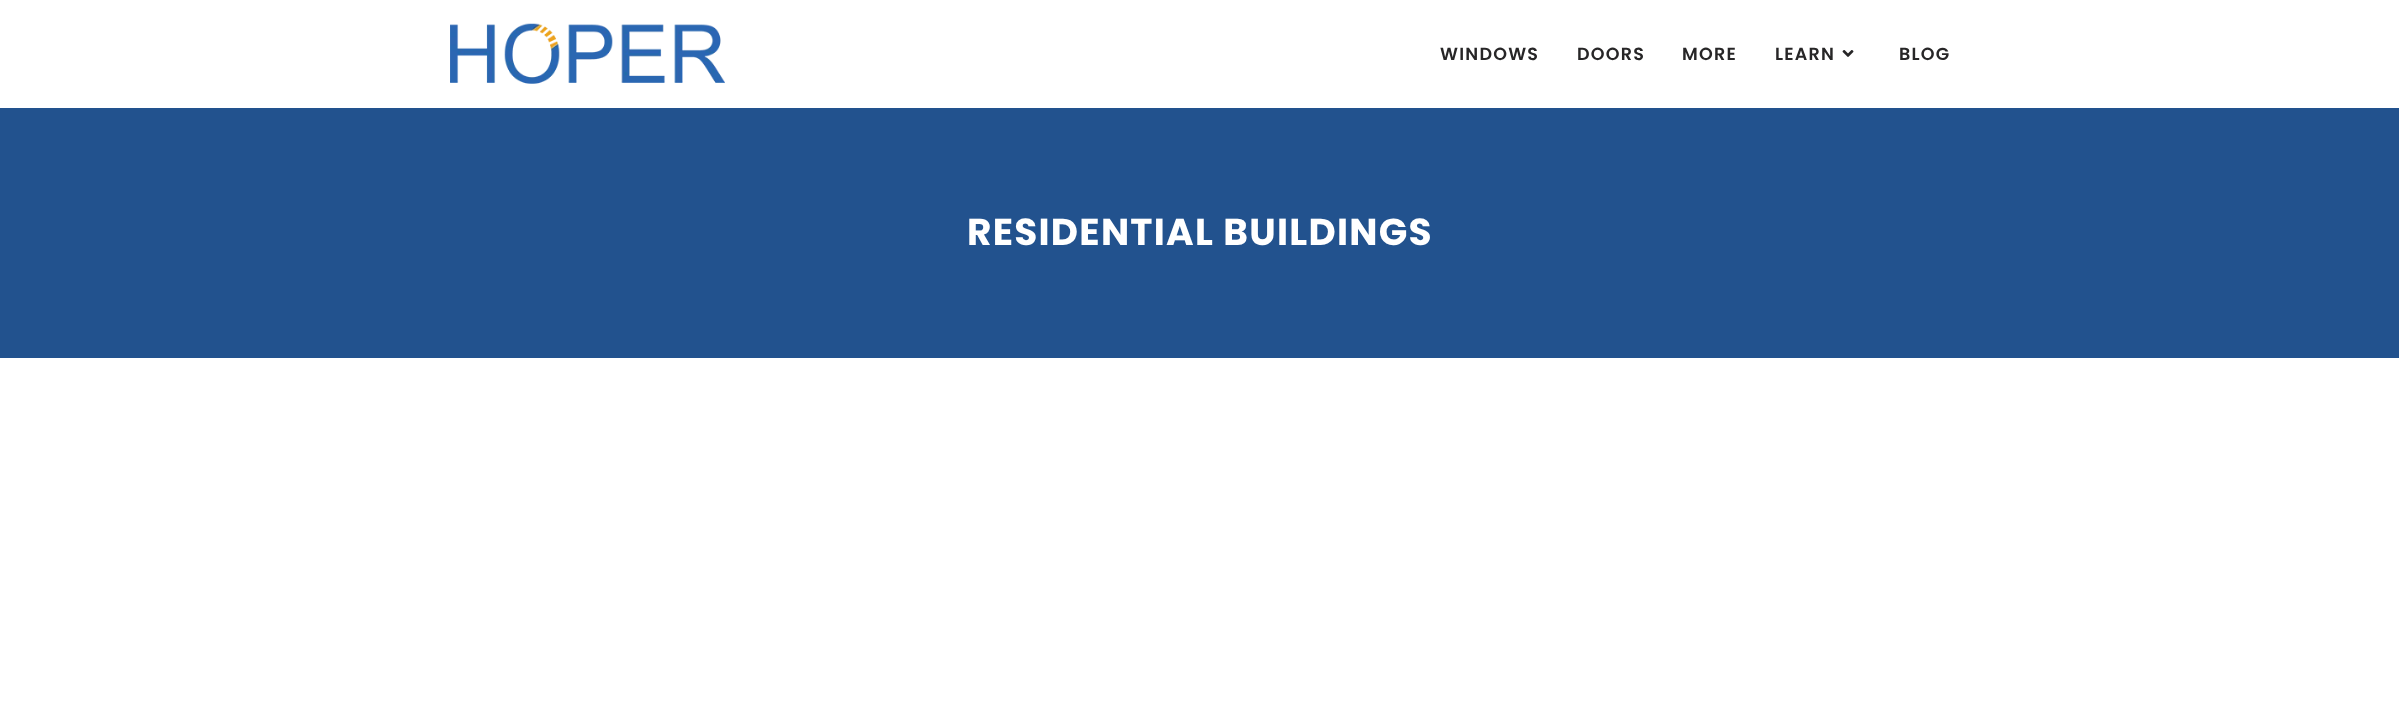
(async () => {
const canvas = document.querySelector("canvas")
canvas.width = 2399
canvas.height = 717
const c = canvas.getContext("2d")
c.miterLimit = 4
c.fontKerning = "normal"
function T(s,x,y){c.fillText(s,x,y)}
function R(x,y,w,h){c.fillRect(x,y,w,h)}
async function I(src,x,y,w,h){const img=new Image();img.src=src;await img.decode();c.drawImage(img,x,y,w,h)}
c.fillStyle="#fff"
R(0,0,2399,717)
await I("1.png",450,23,275,61)
c.letterSpacing="1.25px"
c.font="600 17.5px Poppins"
c.fillStyle="#272627"
T("WINDOWS",1440,60)
T("DOORS",1577,60)
T("MORE",1682,60)
T("LEARN",1775,60)
await I("2.png",1842,50,12,7)
T("BLOG",1899,60)
c.fillStyle="#22528e"
R(0,108,2399,250)
c.font="bold 37.5px Poppins"
c.fillStyle="#fff"
T("RESIDENTIAL BUILDINGS",967,245)
})()
